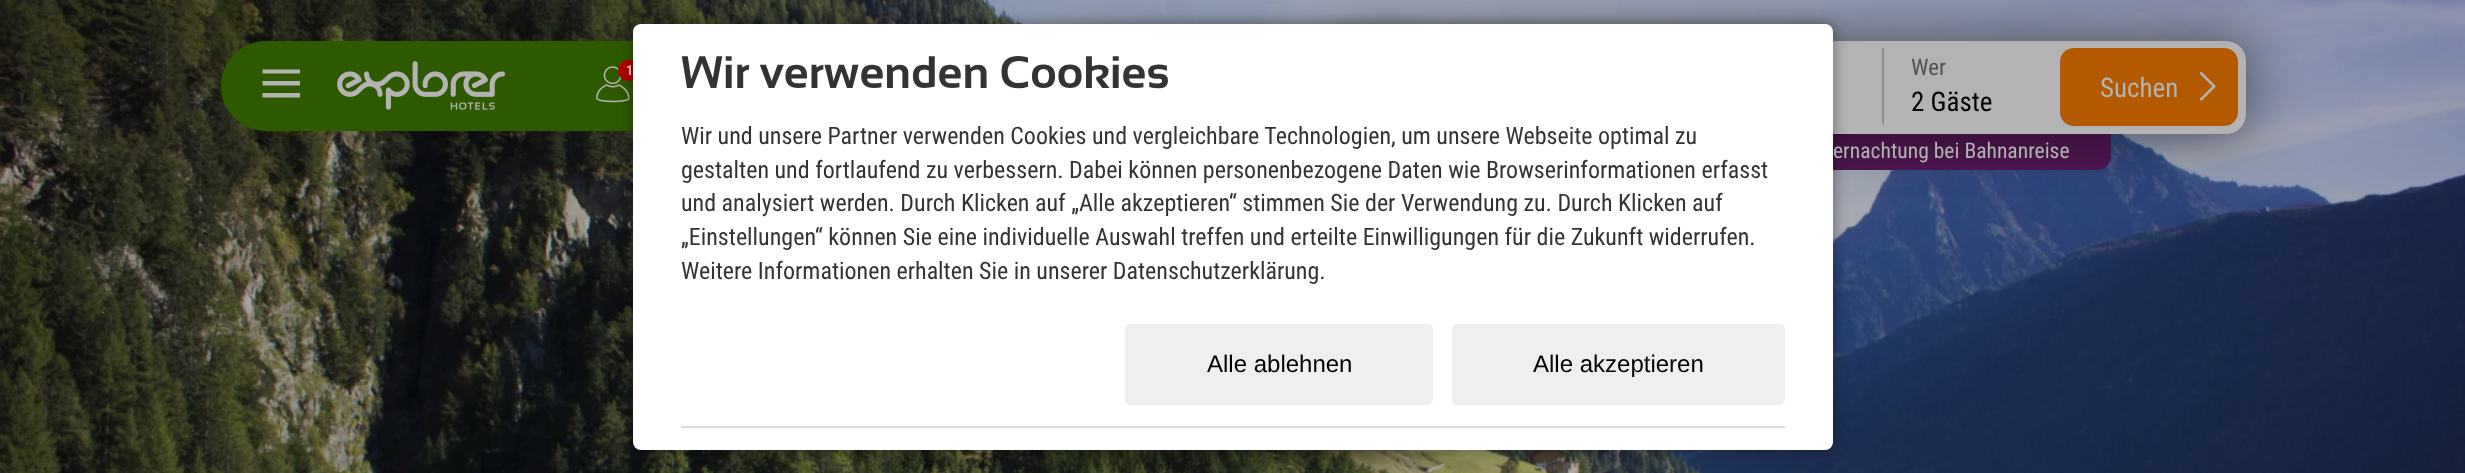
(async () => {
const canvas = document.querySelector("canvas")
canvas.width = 2465
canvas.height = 473
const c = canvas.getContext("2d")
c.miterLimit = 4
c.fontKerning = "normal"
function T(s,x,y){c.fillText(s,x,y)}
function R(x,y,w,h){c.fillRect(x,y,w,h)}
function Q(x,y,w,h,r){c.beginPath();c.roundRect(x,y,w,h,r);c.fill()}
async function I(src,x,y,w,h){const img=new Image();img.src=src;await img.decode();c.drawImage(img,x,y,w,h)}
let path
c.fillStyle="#fff"
R(0,0,2465,473)
await I("1.png",0,0,2465,473)
c.fillStyle="#2d5a00"
Q(221,41,2025,90,45)
c.fillStyle="#4e1751"
c.beginPath()
c.roundRect(1439,134,672,36,[0,0,14,14])
c.fill()
c.fillStyle="#00000080"
c.filter="blur(27px)"
c.beginPath()
c.roundRect(1349,41,897,93,20)
c.fill()
c.filter="none"
c.fillStyle="#b3b3b3"
Q(1349,41,897,93,20)
c.fillStyle="#00000080"
c.filter="blur(19px)"
c.beginPath()
c.roundRect(1071,45,323,414,6)
c.fill()
c.filter="none"
await I("3.png",596,66,34,37)
c.fillStyle="#b30000"
Q(618,60,23,21,10.5)
c.fillStyle="#8f8f8f"
path = new Path2D("M1884 48v78l-2-3v-75z")
c.fill(path)
c.fillStyle="#b3b3b3"
path = new Path2D("M1884 126h-264v-3h262z")
c.fill(path)
c.fillStyle="#00000066"
c.filter="blur(7.5px)"
c.beginPath()
c.roundRect(633,24,1200,426,8)
c.fill()
c.filter="none"
c.fillStyle="#fff"
Q(633,24,1200,426,8)
c.font="bold 45.6px Sansation"
c.fillStyle="#333"
T("Wir verwenden Cookies",681,88)
c.font="24px Roboto Condensed"
T("Wir und unsere Partner verwenden Cookies und vergleichbare Technologien, um unsere Webseite optimal zu",681,144)
T("gestalten und fortlaufend zu verbessern. Dabei können personenbezogene Daten wie Browserinformationen erfasst",681,178)
T("und analysiert werden. Durch Klicken auf „Alle akzeptieren“ stimmen Sie der Verwendung zu. Durch Klicken auf",681,211)
T("„Einstellungen“ können Sie eine individuelle Auswahl treffen und erteilte Einwilligungen für die Zukunft widerrufen.",681,245)
T("Weitere Informationen erhalten Sie in unserer Datenschutzerklärung.",681,279)
c.fillStyle="#efefef"
Q(1125,324,308,81,5)
c.font="24px Liberation Sans"
c.fillStyle="#000"
T("Alle ablehnen",1207,372)
c.fillStyle="#efefef"
Q(1452,324,333,81,5)
c.fillStyle="#000"
T("Alle akzeptieren",1533,372)
c.fillStyle="#ddd"
R(681,426,1104,2)
c.fillStyle="#b3b3b3"
path = new Path2D("M262.5 69.5h37.5v4h-37.5zm0 11.5h37.5v4.5h-37.5zm0 12h37.5v4.5h-37.5z")
c.fill(path)
await I("2.png",337,61,169,49)
c.font="bold 14px Roboto Condensed"
T("1",626,75)
c.font="23px Roboto Condensed"
c.fillStyle="#535353"
T("Wer",1911,75)
c.font="27px Roboto Condensed"
c.fillStyle="#000"
T("2 Gäste",1911,111)
c.fillStyle="#b35a00"
Q(2060,48,178,78,14)
c.fillStyle="#b3b3b3"
T("Suchen",2100,97)
await I("4.png",2199,72,17,29)
c.font="21.6px Roboto Condensed"
T("ernachtung bei Bahnanreise",1833,158)
})()
